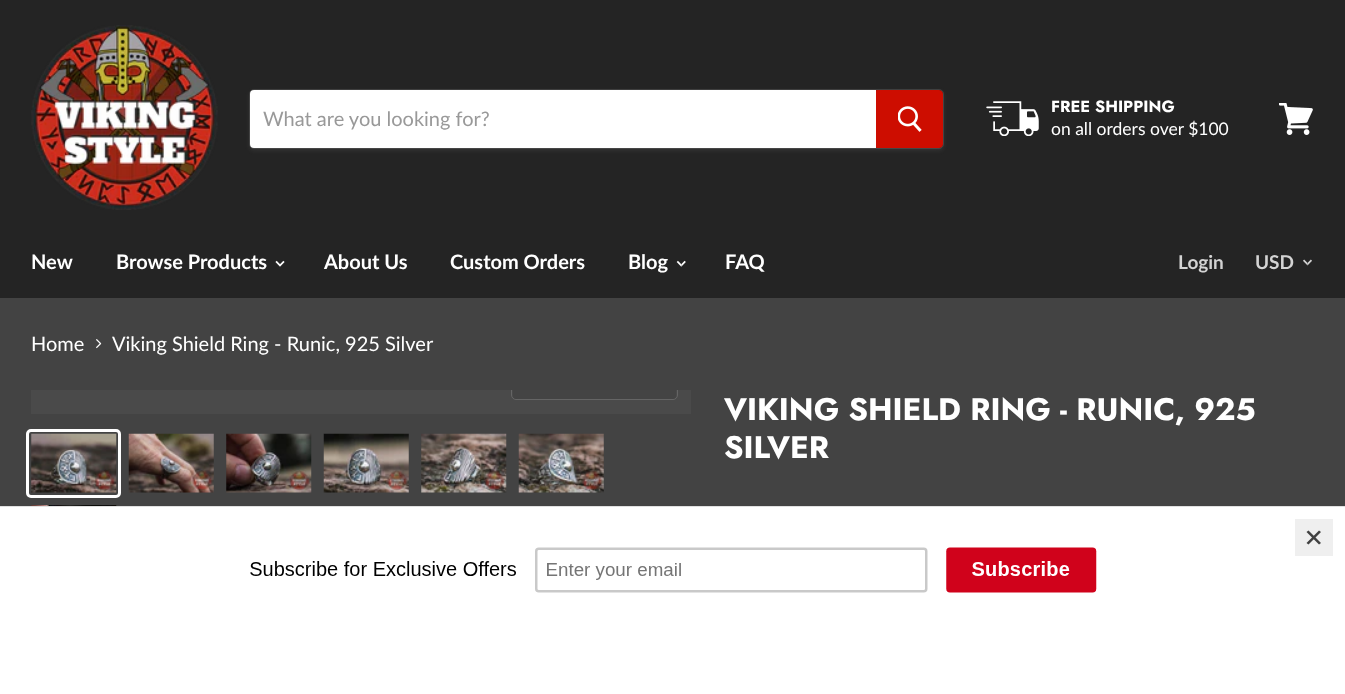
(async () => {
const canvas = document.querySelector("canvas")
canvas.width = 1345
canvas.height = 694
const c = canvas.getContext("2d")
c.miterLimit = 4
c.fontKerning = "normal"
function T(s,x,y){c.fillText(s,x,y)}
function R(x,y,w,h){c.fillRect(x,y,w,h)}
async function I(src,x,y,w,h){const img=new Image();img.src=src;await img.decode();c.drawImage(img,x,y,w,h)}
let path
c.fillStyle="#434343"
R(0,0,1345,694)
c.fillStyle="#242424"
R(0,0,1345,298)
await I("1.png",31,25,187,185)
c.fillStyle="#a1a1a11c"
c.filter="blur(2px)"
c.beginPath()
c.roundRect(249,91,695,60,5)
c.fill()
c.filter="none"
c.beginPath()
c.roundRect(249.5,89.5,694,59,4.5)
c.strokeStyle="#a1a1a133"
c.stroke()
c.fillStyle="#fff"
c.beginPath()
c.roundRect(250,90,626,58,[4,0,0,4])
c.fill()
c.font="20px Lato"
c.fillStyle="#999"
T("What are you looking for?",263,126)
c.fillStyle="#cd0d00"
c.beginPath()
c.roundRect(876.5,90.5,66,57,[0,3.5,3.5,0])
c.fill()
c.strokeStyle="#cd0d00"
c.stroke()
await I("2.png",898,106,24,26)
await I("3.png",986,101,53,35)
c.font="bold 16.25px Jost"
c.fillStyle="#fff"
T("FREE SHIPPING",1051,112)
c.font="17.5px Lato"
T("on all orders over $100",1051,135)
await I("4.png",1279,103,34,32)
c.font="bold 20px Lato"
T("New",31,269)
T("Browse Products",116,269)
await I("5.png",275,260,10,7)
T("About Us",324,269)
T("Custom Orders",450,269)
T("Blog",628,269)
await I("6.png",676,260,10,7)
T("FAQ",725,269)
c.font="bold 19px Lato"
c.fillStyle="#d3d3d3"
T("Login",1178,269)
T("USD",1255,269)
await I("7.png",1303,259,9,7)
c.font="20px Lato"
c.fillStyle="#fff"
T("Home",31,351)
await I("8.png",96,339,6,10)
T("Viking Shield Ring - Runic, 925 Silver",112,351)
c.fillStyle="#4a4a4a"
R(31,390,660,24)
c.save()
c.beginPath()
c.rect(31,390,660,24)
c.clip()
c.beginPath()
c.roundRect(511.5,363.5,166,36,4.5)
c.strokeStyle="#656565"
c.stroke()
c.restore()
c.fillStyle="#444"
c.beginPath()
c.roundRect(513,390,163,9,[0,0,4,4])
c.fill()
c.beginPath()
c.roundRect(27.5,430.5,92,66,3.5)
c.strokeStyle="#fff"
c.lineWidth=3
c.stroke()
await I("9.png",31,433,86,60)
await I("10.png",128,433,86,60)
await I("11.png",226,433,86,60)
await I("12.png",323,433,86,60)
await I("13.png",421,433,86,60)
await I("14.png",518,433,86,60)
await I("15.png",31,505,86,1)
c.font="bold 31.25px Jost"
c.fillStyle="#fff"
T("VIKING SHIELD RING - RUNIC, 925",724,420)
T("SILVER",724,458)
R(0,507,1345,187)
c.fillStyle="#e0e0e0"
R(0,506,1345,1)
await I("16.png",250,547,847,46)
c.fillStyle="#efefef"
R(1295,519,38,37)
c.fillStyle="#414141"
path = new Path2D("M1319 530.5l2 1.5l-12.5 12.5l-2-1.5z")
c.fill(path)
path = new Path2D("M1306.5 532l2-1.5l12.5 12.5l-2 1.5z")
c.fill(path)
})()
